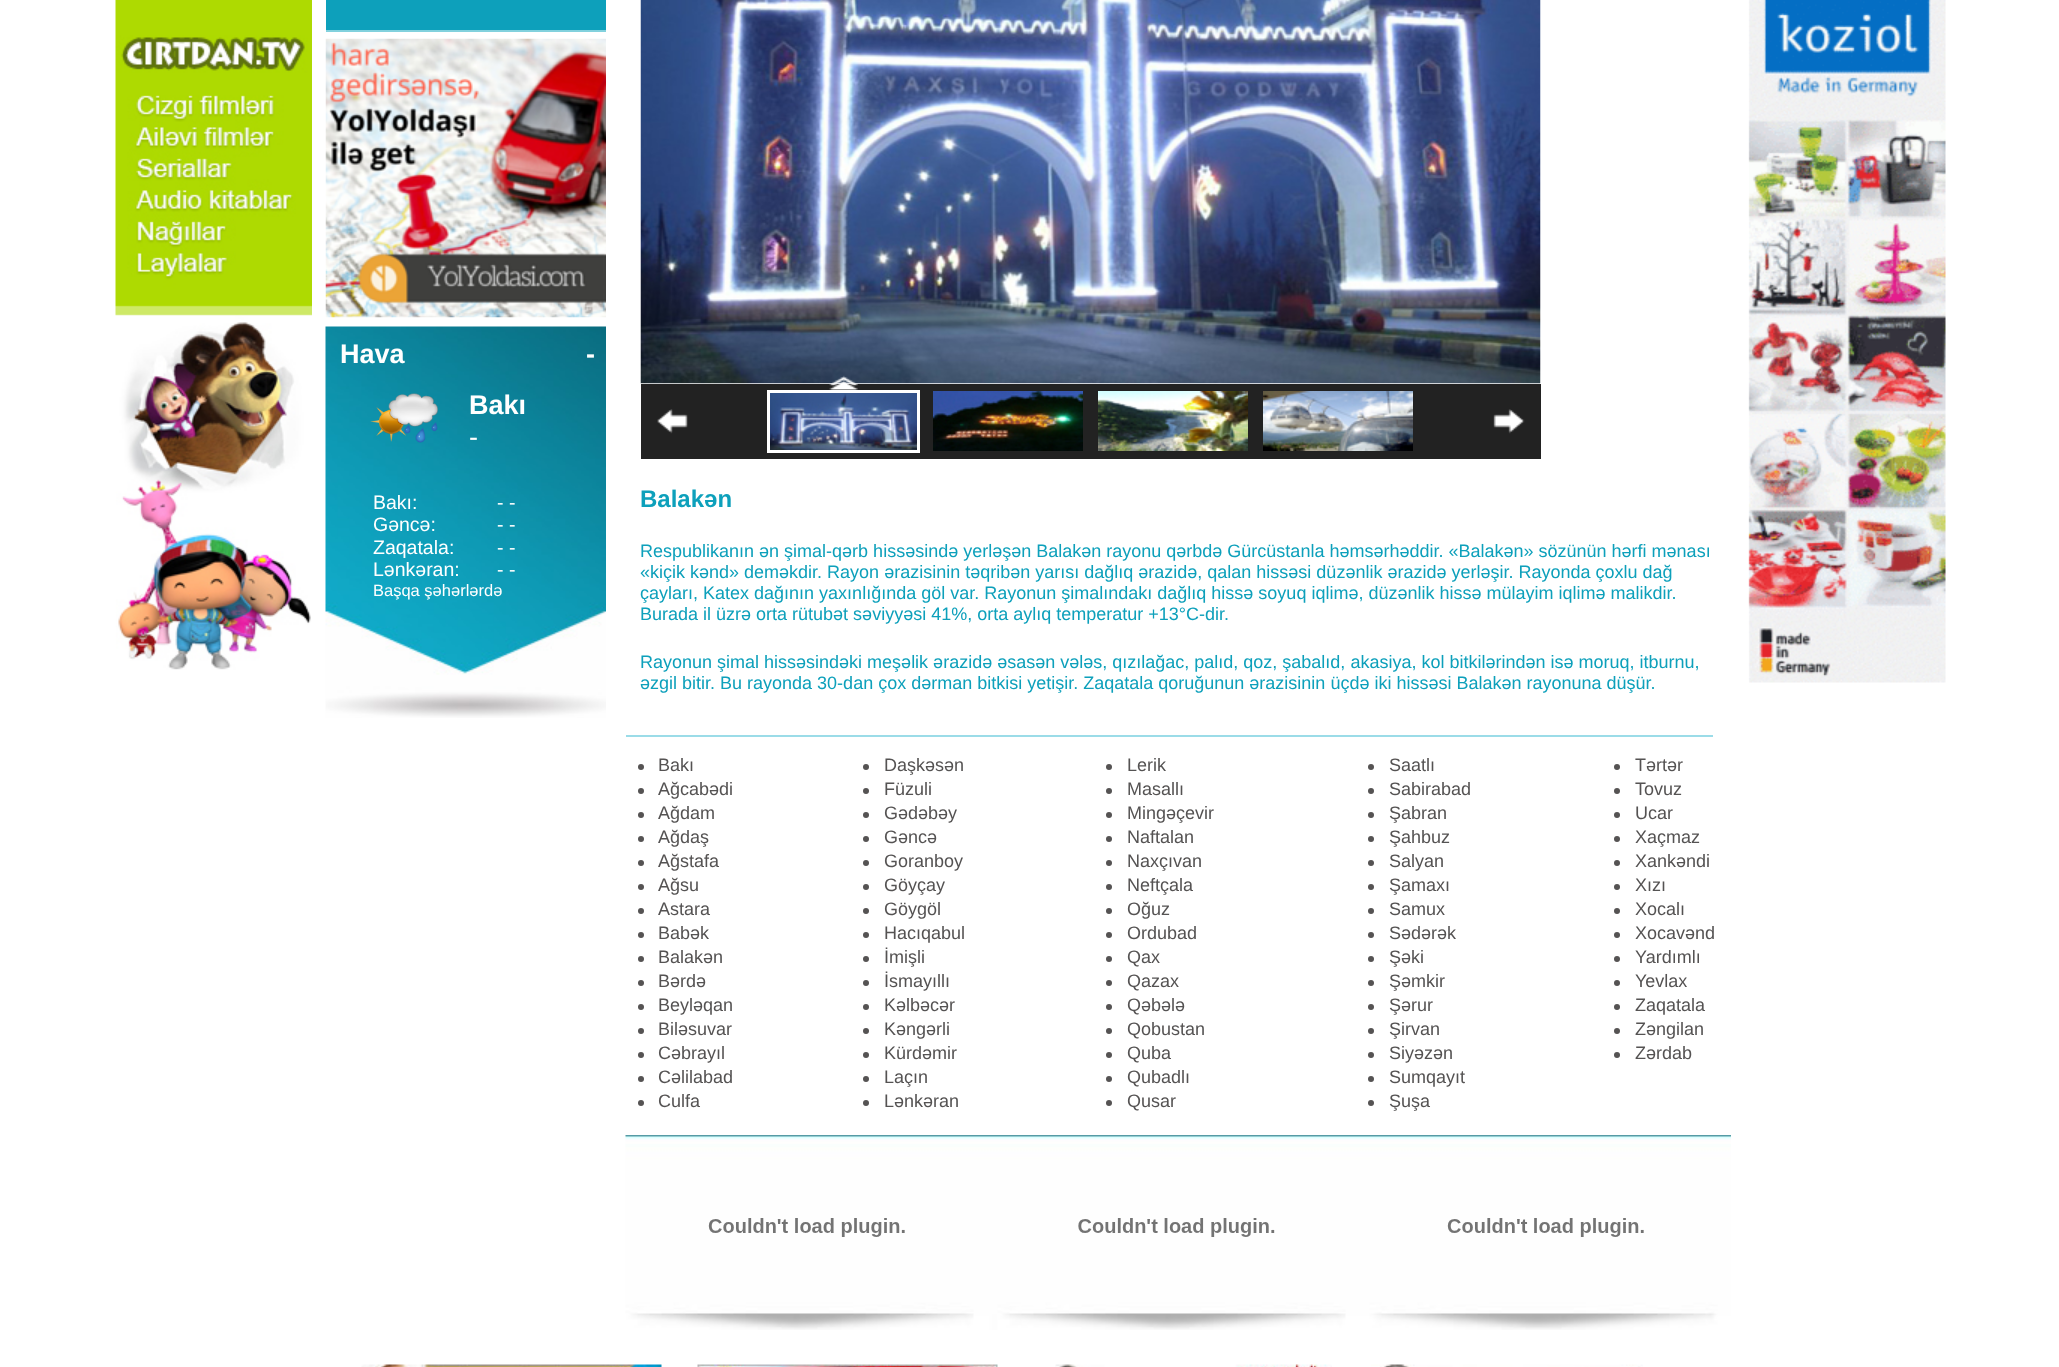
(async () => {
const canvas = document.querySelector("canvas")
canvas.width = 2059
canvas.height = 1367
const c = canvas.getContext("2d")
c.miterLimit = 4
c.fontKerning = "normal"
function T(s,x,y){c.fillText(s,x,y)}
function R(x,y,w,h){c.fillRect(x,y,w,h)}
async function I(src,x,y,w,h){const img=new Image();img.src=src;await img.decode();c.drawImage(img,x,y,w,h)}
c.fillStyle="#fff"
R(0,0,2059,1367)
await I("1.png",115,0,197,670)
c.fillStyle="#0da0bb"
R(326,0,280,30)
c.fillStyle="#82d1dd"
R(326,30,280,2)
await I("2.png",325,38,281,280)
await I("3.png",325,326,281,392)
c.font="bold 27px Liberation Sans"
c.fillStyle="#fff"
T("Hava",340,363)
T("-",586,363)
await I("4.png",370,393,68,50)
T("Bakı",469,414)
c.font="27px Liberation Sans"
T("-",469,446)
c.font="19.5px Liberation Sans"
T("Bakı:",373,509)
T("- -",497,509)
T("Gəncə:",373,531)
T("- -",497,531)
T("Zaqatala:",373,554)
T("- -",497,554)
T("Lənkəran:",373,576)
T("- -",497,576)
c.font="16.5px Liberation Sans"
T("Başqa şəhərlərdə",373,596)
c.fillStyle="#9bdce8"
R(626,735,1087,2)
c.fillStyle="#222"
R(641,384,900,75)
await I("5.png",640,0,901,384)
await I("8.png",770,393,147,57)
c.strokeStyle="#fff"
c.lineWidth=3
c.strokeRect(768.5,391.5,150,60)
await I("6.png",829,375,29,15)
await I("7.png",657,409,31,25)
await I("9.png",933,391,150,60)
await I("10.png",1098,391,150,60)
await I("11.png",1263,391,150,60)
await I("12.png",1493,409,32,25)
c.font="bold 24px Liberation Sans"
c.fillStyle="#0da0bb"
T("Balakən",640,507)
c.font="18px Liberation Sans"
T("Respublikanın ən şimal-qərb hissəsində yerləşən Balakən rayonu qərbdə Gürcüstanla həmsərhəddir. «Balakən» sözünün hərfi mənası",640,557)
T("«kiçik kənd» deməkdir. Rayon ərazisinin təqribən yarısı dağlıq ərazidə, qalan hissəsi düzənlik ərazidə yerləşir. Rayonda çoxlu dağ",640,578)
T("çayları, Katex dağının yaxınlığında göl var. Rayonun şimalındakı dağlıq hissə soyuq iqlimə, düzənlik hissə mülayim iqlimə malikdir.",640,599)
T("Burada il üzrə orta rütubət səviyyəsi 41%, orta aylıq temperatur +13°С-dir.",640,620)
T("Rayonun şimal hissəsindəki meşəlik ərazidə əsasən vələs, qızılağac, palıd, qoz, şabalıd, akasiya, kol bitkilərindən isə moruq, itburnu,",640,668)
T("əzgil bitir. Bu rayonda 30-dan çox dərman bitkisi yetişir. Zaqatala qoruğunun ərazisinin üçdə iki hissəsi Balakən rayonuna düşür.",640,689)
c.fillStyle="#555353"
c.beginPath()
c.arc(641,767,3,0,7)
c.fill()
T("Bakı",658,771)
c.beginPath()
c.arc(866,767,3,0,7)
c.fill()
T("Daşkəsən",884,771)
c.beginPath()
c.arc(1109,767,3,0,7)
c.fill()
T("Lerik",1127,771)
c.beginPath()
c.arc(1371,767,3,0,7)
c.fill()
T("Saatlı",1389,771)
c.beginPath()
c.arc(1617,767,3,0,7)
c.fill()
T("Tərtər",1635,771)
c.beginPath()
c.arc(641,791,3,0,7)
c.fill()
T("Ağcabədi",658,795)
c.beginPath()
c.arc(866,791,3,0,7)
c.fill()
T("Füzuli",884,795)
c.beginPath()
c.arc(1109,791,3,0,7)
c.fill()
T("Masallı",1127,795)
c.beginPath()
c.arc(1371,791,3,0,7)
c.fill()
T("Sabirabad",1389,795)
c.beginPath()
c.arc(1617,791,3,0,7)
c.fill()
T("Tovuz",1635,795)
c.beginPath()
c.arc(641,815,3,0,7)
c.fill()
T("Ağdam",658,819)
c.beginPath()
c.arc(866,815,3,0,7)
c.fill()
T("Gədəbəy",884,819)
c.beginPath()
c.arc(1109,815,3,0,7)
c.fill()
T("Mingəçevir",1127,819)
c.beginPath()
c.arc(1371,815,3,0,7)
c.fill()
T("Şabran",1389,819)
c.beginPath()
c.arc(1617,815,3,0,7)
c.fill()
T("Ucar",1635,819)
c.beginPath()
c.arc(641,839,3,0,7)
c.fill()
T("Ağdaş",658,843)
c.beginPath()
c.arc(866,839,3,0,7)
c.fill()
T("Gəncə",884,843)
c.beginPath()
c.arc(1109,839,3,0,7)
c.fill()
T("Naftalan",1127,843)
c.beginPath()
c.arc(1371,839,3,0,7)
c.fill()
T("Şahbuz",1389,843)
c.beginPath()
c.arc(1617,839,3,0,7)
c.fill()
T("Xaçmaz",1635,843)
c.beginPath()
c.arc(641,863,3,0,7)
c.fill()
T("Ağstafa",658,867)
c.beginPath()
c.arc(866,863,3,0,7)
c.fill()
T("Goranboy",884,867)
c.beginPath()
c.arc(1109,863,3,0,7)
c.fill()
T("Naxçıvan",1127,867)
c.beginPath()
c.arc(1371,863,3,0,7)
c.fill()
T("Salyan",1389,867)
c.beginPath()
c.arc(1617,863,3,0,7)
c.fill()
T("Xankəndi",1635,867)
c.beginPath()
c.arc(641,887,3,0,7)
c.fill()
T("Ağsu",658,891)
c.beginPath()
c.arc(866,887,3,0,7)
c.fill()
T("Göyçay",884,891)
c.beginPath()
c.arc(1109,887,3,0,7)
c.fill()
T("Neftçala",1127,891)
c.beginPath()
c.arc(1371,887,3,0,7)
c.fill()
T("Şamaxı",1389,891)
c.beginPath()
c.arc(1617,887,3,0,7)
c.fill()
T("Xızı",1635,891)
c.beginPath()
c.arc(641,911,3,0,7)
c.fill()
T("Astara",658,915)
c.beginPath()
c.arc(866,911,3,0,7)
c.fill()
T("Göygöl",884,915)
c.beginPath()
c.arc(1109,911,3,0,7)
c.fill()
T("Oğuz",1127,915)
c.beginPath()
c.arc(1371,911,3,0,7)
c.fill()
T("Samux",1389,915)
c.beginPath()
c.arc(1617,911,3,0,7)
c.fill()
T("Xocalı",1635,915)
c.beginPath()
c.arc(641,935,3,0,7)
c.fill()
T("Babək",658,939)
c.beginPath()
c.arc(866,935,3,0,7)
c.fill()
T("Hacıqabul",884,939)
c.beginPath()
c.arc(1109,935,3,0,7)
c.fill()
T("Ordubad",1127,939)
c.beginPath()
c.arc(1371,935,3,0,7)
c.fill()
T("Sədərək",1389,939)
c.beginPath()
c.arc(1617,935,3,0,7)
c.fill()
T("Xocavənd",1635,939)
c.beginPath()
c.arc(641,959,3,0,7)
c.fill()
T("Balakən",658,963)
c.beginPath()
c.arc(866,959,3,0,7)
c.fill()
T("İmişli",884,963)
c.beginPath()
c.arc(1109,959,3,0,7)
c.fill()
T("Qax",1127,963)
c.beginPath()
c.arc(1371,959,3,0,7)
c.fill()
T("Şəki",1389,963)
c.beginPath()
c.arc(1617,959,3,0,7)
c.fill()
T("Yardımlı",1635,963)
c.beginPath()
c.arc(641,983,3,0,7)
c.fill()
T("Bərdə",658,987)
c.beginPath()
c.arc(866,983,3,0,7)
c.fill()
T("İsmayıllı",884,987)
c.beginPath()
c.arc(1109,983,3,0,7)
c.fill()
T("Qazax",1127,987)
c.beginPath()
c.arc(1371,983,3,0,7)
c.fill()
T("Şəmkir",1389,987)
c.beginPath()
c.arc(1617,983,3,0,7)
c.fill()
T("Yevlax",1635,987)
c.beginPath()
c.arc(641,1007,3,0,7)
c.fill()
T("Beyləqan",658,1011)
c.beginPath()
c.arc(866,1007,3,0,7)
c.fill()
T("Kəlbəcər",884,1011)
c.beginPath()
c.arc(1109,1007,3,0,7)
c.fill()
T("Qəbələ",1127,1011)
c.beginPath()
c.arc(1371,1007,3,0,7)
c.fill()
T("Şərur",1389,1011)
c.beginPath()
c.arc(1617,1007,3,0,7)
c.fill()
T("Zaqatala",1635,1011)
c.beginPath()
c.arc(641,1031,3,0,7)
c.fill()
T("Biləsuvar",658,1035)
c.beginPath()
c.arc(866,1031,3,0,7)
c.fill()
T("Kəngərli",884,1035)
c.beginPath()
c.arc(1109,1031,3,0,7)
c.fill()
T("Qobustan",1127,1035)
c.beginPath()
c.arc(1371,1031,3,0,7)
c.fill()
T("Şirvan",1389,1035)
c.beginPath()
c.arc(1617,1031,3,0,7)
c.fill()
T("Zəngilan",1635,1035)
c.beginPath()
c.arc(641,1055,3,0,7)
c.fill()
T("Cəbrayıl",658,1059)
c.beginPath()
c.arc(866,1055,3,0,7)
c.fill()
T("Kürdəmir",884,1059)
c.beginPath()
c.arc(1109,1055,3,0,7)
c.fill()
T("Quba",1127,1059)
c.beginPath()
c.arc(1371,1055,3,0,7)
c.fill()
T("Siyəzən",1389,1059)
c.beginPath()
c.arc(1617,1055,3,0,7)
c.fill()
T("Zərdab",1635,1059)
c.beginPath()
c.arc(641,1079,3,0,7)
c.fill()
T("Cəlilabad",658,1083)
c.beginPath()
c.arc(866,1079,3,0,7)
c.fill()
T("Laçın",884,1083)
c.beginPath()
c.arc(1109,1079,3,0,7)
c.fill()
T("Qubadlı",1127,1083)
c.beginPath()
c.arc(1371,1079,3,0,7)
c.fill()
T("Sumqayıt",1389,1083)
c.beginPath()
c.arc(641,1103,3,0,7)
c.fill()
T("Culfa",658,1107)
c.beginPath()
c.arc(866,1103,3,0,7)
c.fill()
T("Lənkəran",884,1107)
c.beginPath()
c.arc(1109,1103,3,0,7)
c.fill()
T("Qusar",1127,1107)
c.beginPath()
c.arc(1371,1103,3,0,7)
c.fill()
T("Şuşa",1389,1107)
await I("13.png",625,1135,1106,195)
await I("14.png",708,1218,197,19)
await I("15.png",1078,1218,197,19)
await I("16.png",1447,1218,197,19)
await I("17.png",1748,0,198,683)
await I("18.png",361,1364,301,3)
await I("19.png",697,1364,301,3)
await I("20.png",1055,1364,277,3)
await I("21.png",1371,1364,272,3)
})()
